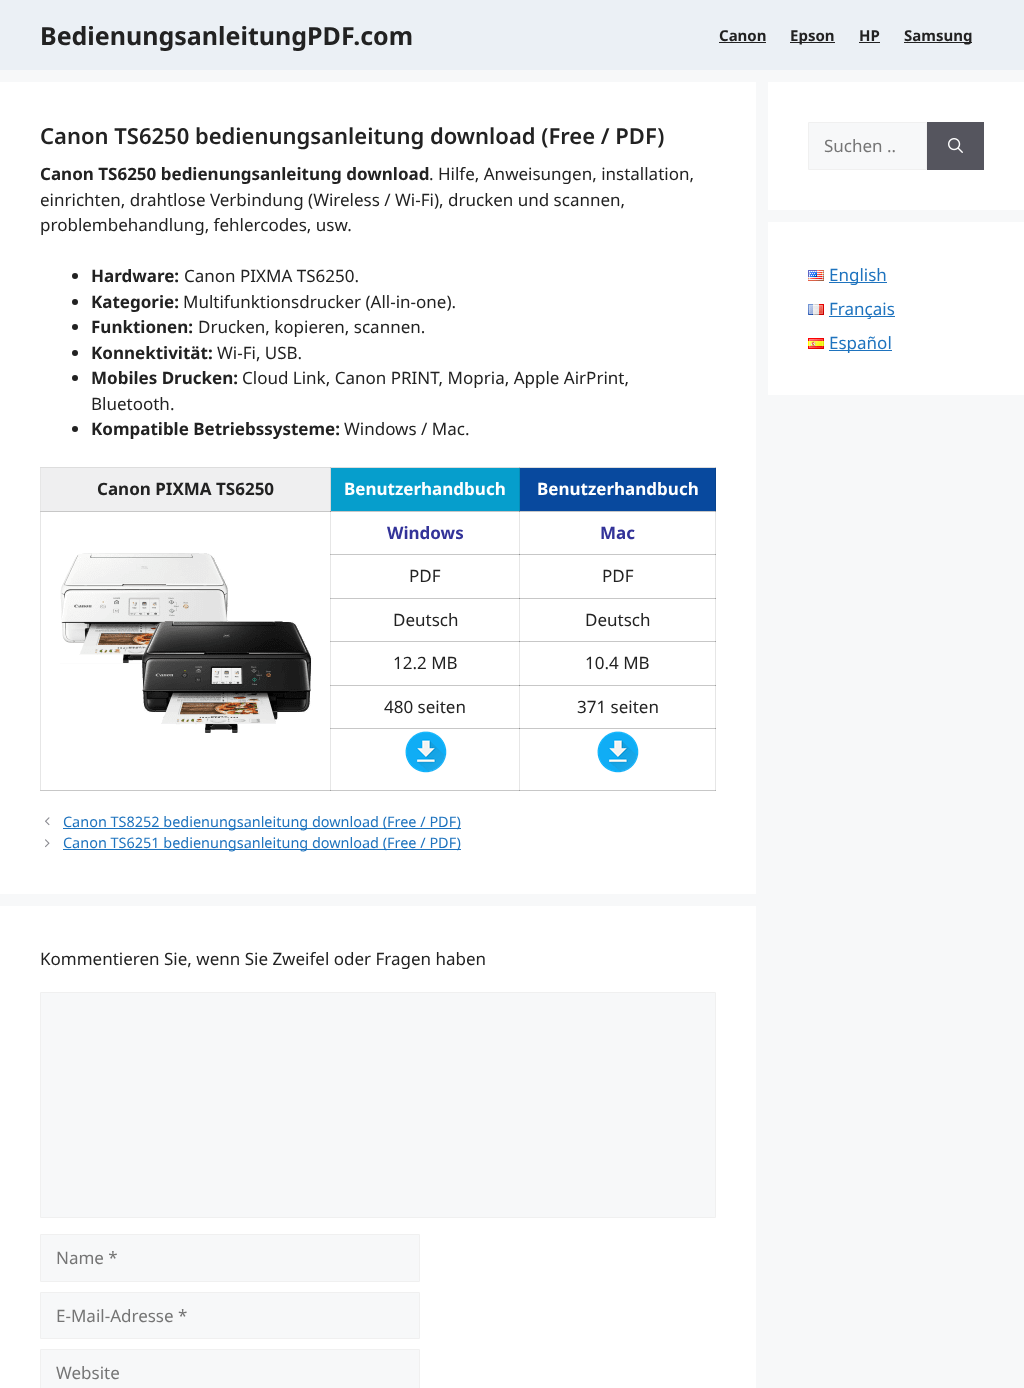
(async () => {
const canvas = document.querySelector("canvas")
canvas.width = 1024
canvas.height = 1388
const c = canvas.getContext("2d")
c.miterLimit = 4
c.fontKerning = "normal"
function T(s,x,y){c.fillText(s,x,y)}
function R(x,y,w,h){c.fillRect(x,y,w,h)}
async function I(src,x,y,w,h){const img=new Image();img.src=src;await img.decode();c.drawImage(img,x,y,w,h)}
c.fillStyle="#f7f8f9"
R(0,0,1024,1388)
c.fillStyle="#ebf0f5"
R(0,0,1024,70)
c.font="bold 25px Noto Sans"
c.fillStyle="#222"
T("BedienungsanleitungPDF.com",40,45)
c.font="bold 15px Noto Sans"
T("Canon",719,41)
R(719,42,47,1)
R(790,42,45,1)
T("Epson",790,41)
T("HP",859,41)
R(859,42,21,1)
R(904,42,68,1)
T("Samsung",904,41)
c.fillStyle="#fff"
R(0,82,756,812)
c.fillStyle="#e6e6e6"
R(330,511,1,280)
R(519,511,1,280)
R(715,511,1,280)
R(40,467,1,324)
c.font="600 22px Noto Sans"
c.fillStyle="#222"
T("Canon TS6250 bedienungsanleitung download (Free / PDF)",40,144)
c.font="bold 17px Noto Sans"
T("Canon TS6250 bedienungsanleitung download",40,180)
c.font="17px Noto Sans"
T(". Hilfe, Anweisungen, installation,",429,180)
T("einrichten, drahtlose Verbindung (Wireless / Wi-Fi), drucken und scannen,",40,206)
T("problembehandlung, fehlercodes, usw.",40,231)
c.beginPath()
c.arc(75,276,3,0,7)
c.fill()
c.font="bold 17px Noto Sans"
T("Hardware:",91,282)
c.font="17px Noto Sans"
T("Canon PIXMA TS6250.",184,282)
c.beginPath()
c.arc(75,302,3,0,7)
c.fill()
c.font="bold 17px Noto Sans"
T("Kategorie:",91,308)
c.font="17px Noto Sans"
T("Multifunktionsdrucker (All-in-one).",183,308)
c.beginPath()
c.arc(75,327,3,0,7)
c.fill()
c.font="bold 17px Noto Sans"
T("Funktionen:",91,333)
c.font="17px Noto Sans"
T("Drucken, kopieren, scannen.",198,333)
c.beginPath()
c.arc(75,353,3,0,7)
c.fill()
c.font="bold 17px Noto Sans"
T("Konnektivität:",91,359)
c.font="17px Noto Sans"
T("Wi-Fi, USB.",217,359)
c.beginPath()
c.arc(75,378,3,0,7)
c.fill()
c.font="bold 17px Noto Sans"
T("Mobiles Drucken:",91,384)
c.font="17px Noto Sans"
T("Cloud Link, Canon PRINT, Mopria, Apple AirPrint,",242,384)
T("Bluetooth.",91,410)
c.beginPath()
c.arc(75,429,3,0,7)
c.fill()
c.font="bold 17px Noto Sans"
T("Kompatible Betriebssysteme:",91,435)
c.font="17px Noto Sans"
T("Windows / Mac.",344,435)
c.fillStyle="#c7c7c7"
R(40,790,676,1)
c.fillStyle="#a1a1a1"
R(330,790,1,1)
R(519,790,1,1)
c.fillStyle="#b3b3b3"
R(715,790,1,1)
c.fillStyle="#efeff0"
R(41,468,289,43)
c.fillStyle="#d7d7d8"
R(330,468,1,43)
c.fillStyle="#ddd"
R(40,467,676,1)
c.fillStyle="#c7c7c7"
R(330,467,1,1)
c.font="bold 17px Noto Sans"
c.fillStyle="#222"
T("Canon PIXMA TS6250",97,495)
c.fillStyle="#069ecc"
R(331,468,188,43)
c.fillStyle="#058eb8"
R(519,468,1,43)
c.fillStyle="#c7c7c7"
R(519,467,1,1)
c.fillStyle="#fff"
T("Benutzerhandbuch",344,495)
c.fillStyle="#08499e"
R(520,468,195,43)
c.fillStyle="#07428e"
R(715,468,1,43)
c.fillStyle="#c7c7c7"
R(715,467,1,1)
c.fillStyle="#fff"
T("Benutzerhandbuch",537,495)
c.fillStyle="#c7c7c7"
R(40,511,676,1)
c.fillStyle="#919191"
R(330,511,1,1)
await I("1.png",60,553,253,180)
R(519,511,1,1)
c.fillStyle="#339"
T("Windows",387,539)
c.fillStyle="#a1a1a1"
R(715,511,1,1)
c.fillStyle="#339"
T("Mac",600,539)
c.fillStyle="#c7c7c7"
R(330,554,386,1)
c.fillStyle="#b3b3b3"
R(330,554,1,1)
c.fillStyle="#919191"
R(519,554,1,1)
c.font="17px Noto Sans"
c.fillStyle="#222"
T("PDF",409,582)
c.fillStyle="#a1a1a1"
R(715,554,1,1)
c.fillStyle="#222"
T("PDF",602,582)
c.fillStyle="#c7c7c7"
R(330,598,386,1)
c.fillStyle="#b3b3b3"
R(330,598,1,1)
c.fillStyle="#919191"
R(519,598,1,1)
c.fillStyle="#222"
T("Deutsch",393,626)
c.fillStyle="#a1a1a1"
R(715,598,1,1)
c.fillStyle="#222"
T("Deutsch",585,626)
c.fillStyle="#c7c7c7"
R(330,641,386,1)
c.fillStyle="#b3b3b3"
R(330,641,1,1)
c.fillStyle="#919191"
R(519,641,1,1)
c.fillStyle="#222"
T("12.2 MB",393,669)
c.fillStyle="#a1a1a1"
R(715,641,1,1)
c.fillStyle="#222"
T("10.4 MB",585,669)
c.fillStyle="#c7c7c7"
R(330,685,386,1)
c.fillStyle="#b3b3b3"
R(330,685,1,1)
c.fillStyle="#919191"
R(519,685,1,1)
c.fillStyle="#222"
T("480 seiten",384,713)
c.fillStyle="#a1a1a1"
R(715,685,1,1)
c.fillStyle="#222"
T("371 seiten",577,713)
c.fillStyle="#c7c7c7"
R(330,728,386,1)
c.fillStyle="#a1a1a1"
R(715,728,1,1)
await I("2.png",597,731,42,42)
c.fillStyle="#b3b3b3"
R(330,728,1,1)
c.fillStyle="#919191"
R(519,728,1,1)
await I("2.png",405,731,42,42)
await I("3.png",45,817,5,9)
c.fillStyle="#1e73be"
R(63,828,398,1)
c.font="14.45px Noto Sans"
T("Canon TS8252 bedienungsanleitung download (Free / PDF)",63,827)
await I("4.png",45,839,5,9)
R(63,849,398,1)
T("Canon TS6251 bedienungsanleitung download (Free / PDF)",63,848)
c.fillStyle="#fff"
R(0,906,756,482)
c.font="17px Noto Sans"
c.fillStyle="#222"
T("Kommentieren Sie, wenn Sie Zweifel oder Fragen haben",40,965)
c.fillStyle="#f7f8f9"
c.beginPath()
c.rect(40.5,992.5,675,225)
c.fill()
c.strokeStyle="#f0f0f0"
c.stroke()
c.beginPath()
c.rect(40.5,1234.5,379,47)
c.fill()
c.stroke()
c.fillStyle="#757575"
T("Name *",56,1264)
c.fillStyle="#f7f8f9"
c.beginPath()
c.rect(40.5,1292.5,379,46)
c.fill()
c.stroke()
c.fillStyle="#757575"
T("E-Mail-Adresse *",56,1322)
c.fillStyle="#f7f8f9"
c.beginPath()
c.rect(40.5,1349.5,379,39)
c.fill()
c.stroke()
c.fillStyle="#757575"
T("Website",56,1379)
c.fillStyle="#fff"
R(768,82,256,128)
c.fillStyle="#f7f8f9"
c.beginPath()
c.rect(808.5,122.5,118,47)
c.fill()
c.stroke()
c.save()
c.beginPath()
c.rect(824,134,71,23)
c.clip()
c.fillStyle="#757575"
T("Suchen …",824,152)
c.restore()
c.fillStyle="#55555e"
R(927,122,57,48)
await I("5.png",948,138,15,15)
c.fillStyle="#fff"
R(768,222,256,173)
await I("6.png",808,270,16,11)
c.fillStyle="#1e73be"
R(829,282,58,1)
T("English",829,281)
await I("7.png",808,304,16,11)
R(829,316,66,1)
T("Français",829,315)
await I("8.png",808,338,16,11)
R(829,350,63,1)
T("Español",829,349)
})()
